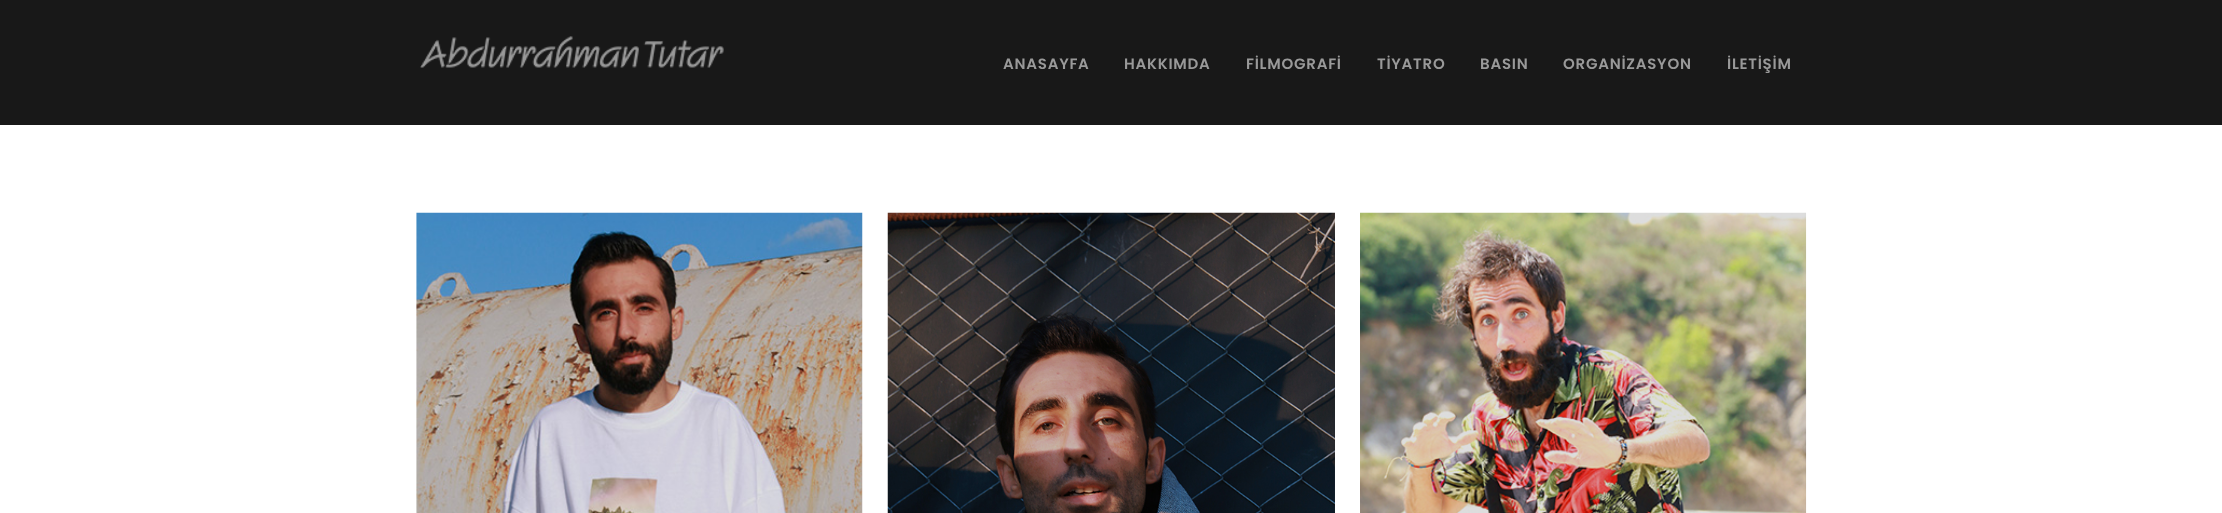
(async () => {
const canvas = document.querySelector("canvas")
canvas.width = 2222
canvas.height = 513
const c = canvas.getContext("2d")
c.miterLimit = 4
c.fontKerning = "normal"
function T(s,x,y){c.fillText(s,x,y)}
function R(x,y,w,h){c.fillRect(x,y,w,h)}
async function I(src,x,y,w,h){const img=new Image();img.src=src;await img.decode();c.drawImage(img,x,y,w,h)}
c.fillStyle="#fff"
R(0,0,2222,513)
c.fillStyle="#181818"
R(0,0,2222,125)
await I("1.png",420,36,304,32)
c.letterSpacing="0.75px"
c.font="600 15px Poppins"
c.fillStyle="#999"
T("ANASAYFA",1003,69)
T("HAKKIMDA",1124,69)
T("FİLMOGRAFİ",1246,69)
T("TİYATRO",1377,69)
T("BASIN",1480,69)
T("ORGANİZASYON",1563,69)
T("İLETİŞİM",1727,69)
await I("2.png",416,212,447,301)
await I("3.png",887,212,448,301)
await I("4.png",1360,212,447,301)
})()
